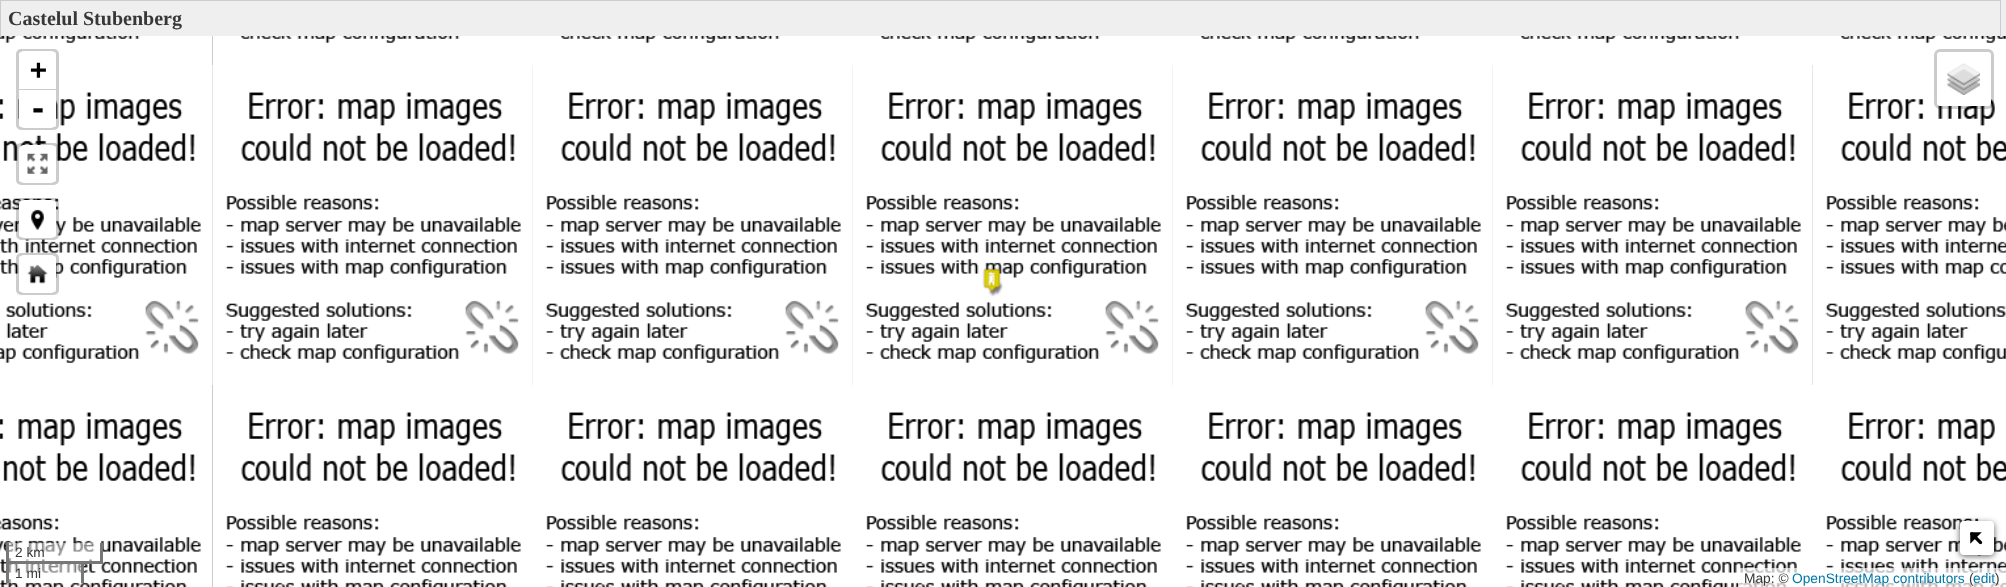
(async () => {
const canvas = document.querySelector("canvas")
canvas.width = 2006
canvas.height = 587
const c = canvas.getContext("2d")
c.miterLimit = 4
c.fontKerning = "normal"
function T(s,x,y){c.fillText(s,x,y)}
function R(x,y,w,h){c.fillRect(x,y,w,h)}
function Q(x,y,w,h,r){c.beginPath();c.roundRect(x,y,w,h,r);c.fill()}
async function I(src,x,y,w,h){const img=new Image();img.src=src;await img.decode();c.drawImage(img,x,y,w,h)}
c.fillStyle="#efefef"
R(0,0,2006,587)
c.fillStyle="#ccc"
R(0,0,2001,1)
R(2000,0,1,36)
R(0,0,1,36)
c.font="bold 20px Liberation Serif"
c.fillStyle="#373737"
T("Castelul Stubenberg",8,25)
c.fillStyle="#ccc"
R(212,36,1601,551)
await I("1.png",0,36,212,29)
await I("2.png",213,36,320,29)
await I("2.png",533,36,320,29)
await I("3.png",853,36,320,29)
await I("3.png",1173,36,320,29)
await I("4.png",1493,36,320,29)
await I("5.png",1813,36,193,29)
await I("6.png",0,65,212,320)
await I("8.png",852,65,321,320)
await I("7.png",532,65,321,320)
await I("7.png",212,65,321,320)
await I("9.png",1172,65,321,320)
await I("10.png",1492,65,321,320)
await I("11.png",1813,65,193,320)
await I("12.png",0,385,212,202)
await I("13.png",213,385,320,202)
await I("13.png",533,385,320,202)
await I("14.png",853,385,320,202)
await I("14.png",1173,385,320,202)
await I("15.png",1493,385,320,202)
await I("16.png",1813,385,193,202)
await I("18.png",988,282,15,15)
await I("17.png",982,267,20,26)
c.beginPath()
c.roundRect(17.5,50.5,40,78,3.5)
c.strokeStyle="#00000033"
c.lineWidth=3
c.stroke()
c.fillStyle="#fff"
c.beginPath()
c.roundRect(19,51,37,39,[5,5,0,0])
c.fill()
c.fillStyle="#ccc"
R(19,89,37,1)
c.font="bold 28px DejaVu Sans Mono"
c.fillStyle="#000"
T("+",30,79)
c.fillStyle="#fff"
c.beginPath()
c.roundRect(19,90,37,38,[0,0,5,5])
c.fill()
c.font="bold 30px DejaVu Sans Mono"
c.fillStyle="#000"
T("-",29,119)
c.beginPath()
c.roundRect(17.5,144.5,40,39,3.5)
c.stroke()
c.fillStyle="#fff"
Q(19,145,37,38,5)
await I("19.png",27,153,21,21)
c.beginPath()
c.roundRect(17.5,199.5,40,39,3.5)
c.stroke()
Q(19,200,37,38,5)
await I("20.png",31,209,13,21)
c.beginPath()
c.roundRect(17.5,254.5,40,39,3.5)
c.stroke()
Q(19,255,37,38,5)
await I("21.png",27,264,21,20)
Q(1936,51,55,55,4)
c.beginPath()
c.roundRect(1935.5,50.5,57,57,4.5)
c.stroke()
await I("22.png",1947,63,33,32)
c.fillStyle="#ffffff80"
R(9,543,86,18)
c.fillStyle="#777"
R(100,543,3,21)
R(84,561,19,3)
R(6,543,3,21)
c.font="13.75px Liberation Sans"
c.fillStyle="#373737"
T("2 km",15,557)
c.fillStyle="#ffffff80"
R(9,564,72,19)
c.fillStyle="#777"
R(6,561,78,3)
R(81,561,3,22)
R(6,561,3,22)
c.fillStyle="#373737"
T("1 mi",15,578)
c.fillStyle="#000000a6"
c.filter="blur(3px)"
c.beginPath()
c.roundRect(1960,523,34,33,4)
c.fill()
c.filter="none"
c.beginPath()
c.roundRect(1962.5,523.5,29,29,1.5)
c.strokeStyle="#fff"
c.lineWidth=5
c.stroke()
c.fillStyle="#fff"
R(1965,526,24,24)
await I("23.png",1970,532,13,13)
c.fillStyle="#ffffffb3"
R(1738,568,268,19)
c.fillStyle="#373737"
T("Map: ©",1744,583)
c.fillStyle="#0078a8"
T("OpenStreetMap contributors",1792,583)
c.fillStyle="#373737"
T("(",1969,583)
c.fillStyle="#0078a8"
T("edit",1973,583)
c.fillStyle="#373737"
T(")",1995,583)
})()
